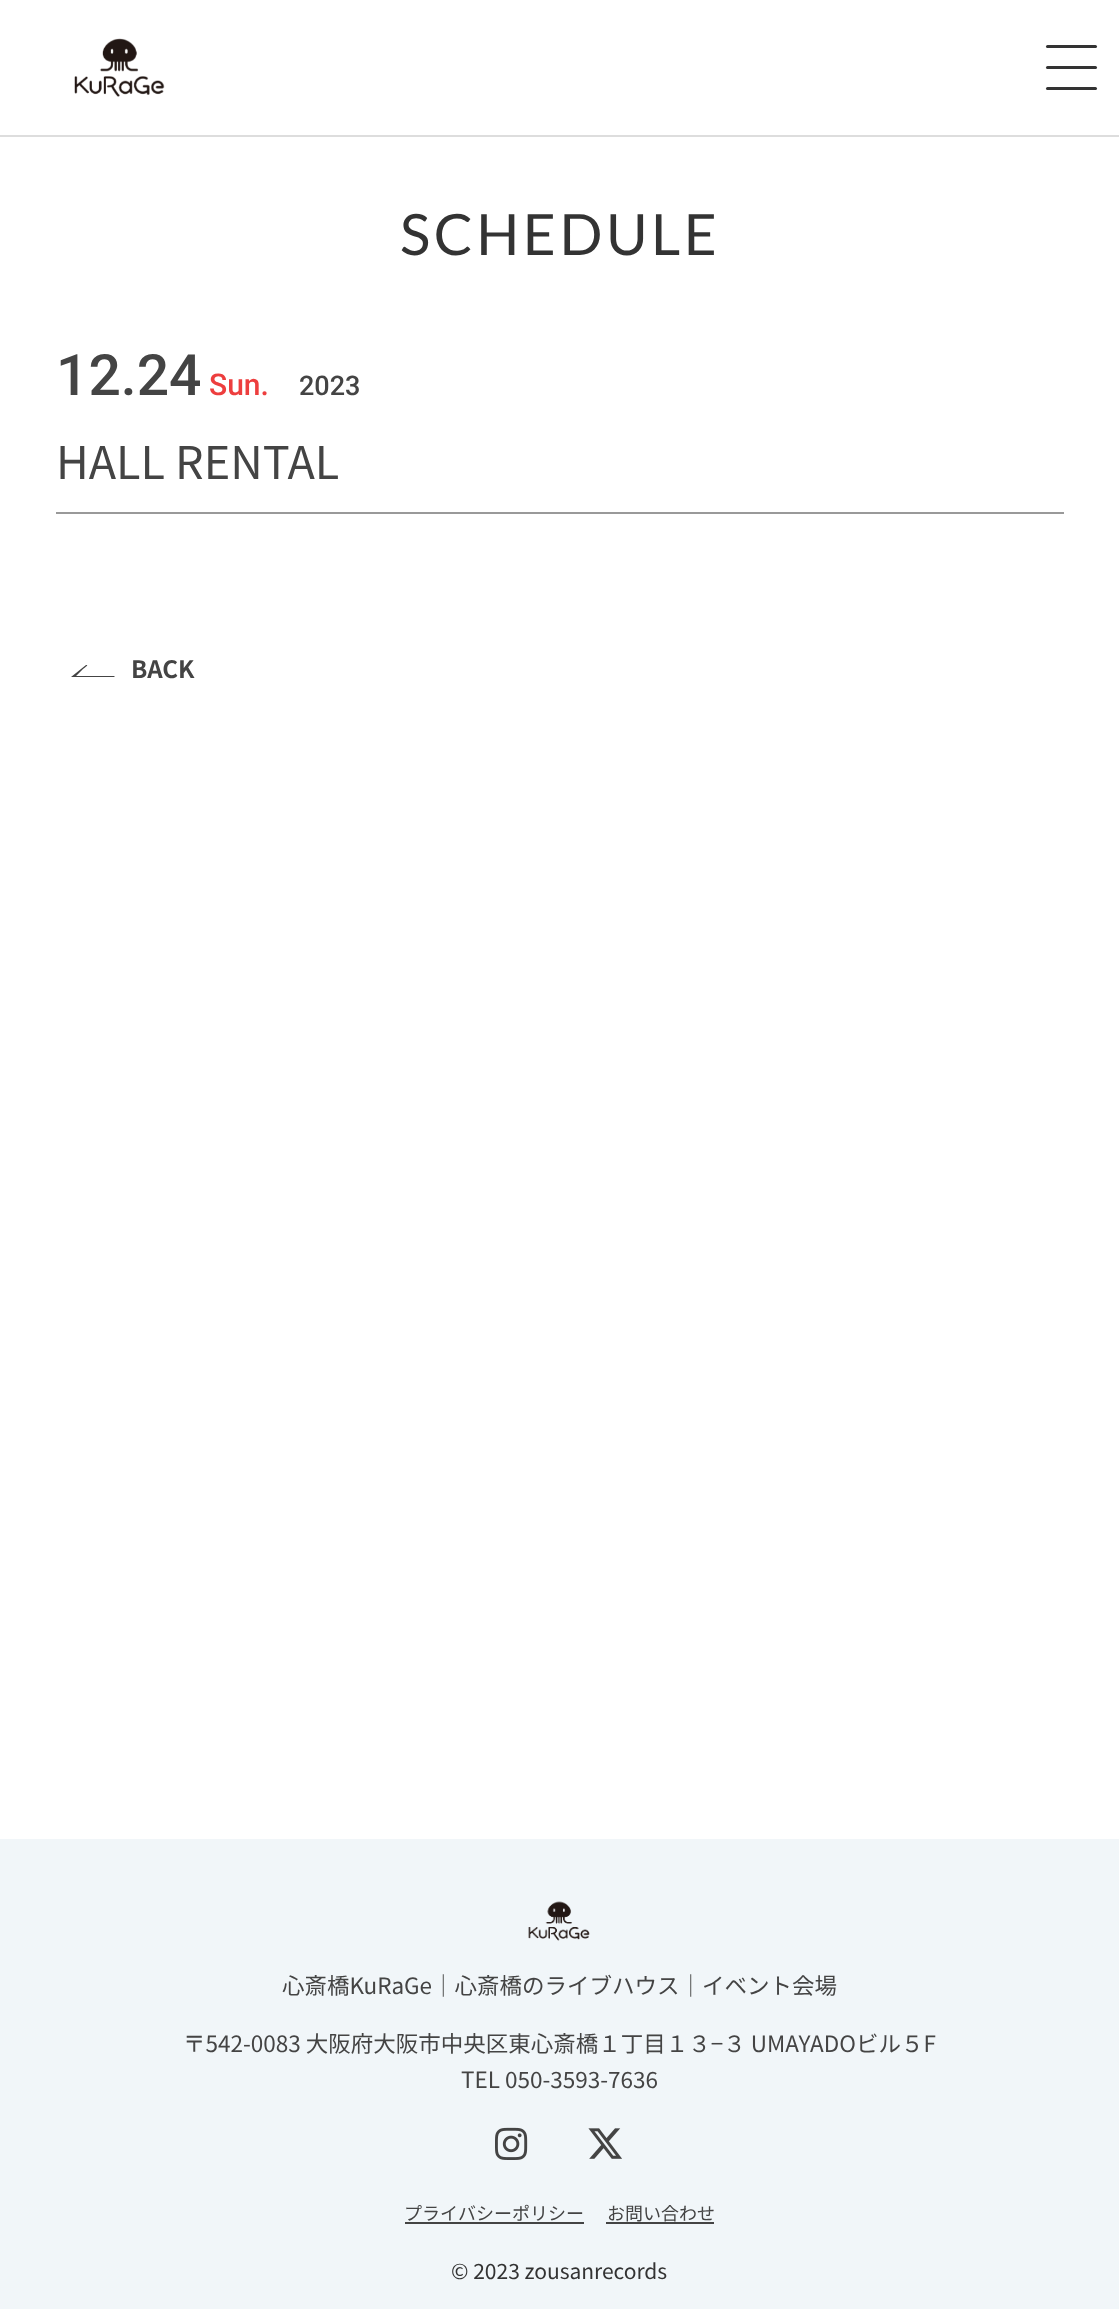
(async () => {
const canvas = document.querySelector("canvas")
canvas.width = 1119
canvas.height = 2309
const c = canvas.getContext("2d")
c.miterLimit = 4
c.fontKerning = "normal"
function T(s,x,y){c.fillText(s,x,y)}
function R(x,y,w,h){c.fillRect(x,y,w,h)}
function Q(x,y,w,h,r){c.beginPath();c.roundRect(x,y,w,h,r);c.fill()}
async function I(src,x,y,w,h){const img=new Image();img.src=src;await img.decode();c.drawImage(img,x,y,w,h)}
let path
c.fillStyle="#fff"
R(0,0,1119,2309)
c.fillStyle="#ddd"
R(0,135,1119,2)
await I("1.png",74,38,91,59)
c.fillStyle="#333"
Q(1046,45,51,3,1.5)
Q(1046,66,51,3,1.5)
Q(1046,87,51,3,1.5)
c.letterSpacing="3.5px"
c.font="57px Lato"
T("SCHEDULE",400,255)
c.letterSpacing="0px"
c.font="500 57px Roboto"
c.fillStyle="#444"
T("12.24",56,395)
c.font="500 30px Roboto"
c.fillStyle="#ed3e3e"
T("Sun.",209,395)
c.font="500 27px Roboto"
c.fillStyle="#444"
T("2023",299,395)
c.fillStyle="#999"
R(56,512,1008,2)
c.font="45px Noto Sans JP"
c.fillStyle="#444"
T("HALL RENTAL",56,479)
path = new Path2D("M114 677h-43l15-12h1c1 0-1 2-4 4l-7 7h38c1 0 1 1 0 1z")
c.fill(path)
c.font="bold 24px Noto Sans JP"
T("BACK",131,678)
c.fillStyle="#f1f6f9"
R(0,1839,1119,470)
await I("2.png",528,1901,62,40)
c.font="22.5px Noto Sans JP"
c.fillStyle="#444"
T("心斎橋KuRaGe│心斎橋のライブハウス│イベント会場",282,1994)
T("〒542-0083 大阪府大阪市中央区東心斎橋１丁目１３−３ UMAYADOビル５F",183,2052)
T("TEL 050-3593-7636",461,2088)
await I("3.png",495,2127,33,33)
await I("4.png",588,2128,34,31)
c.font="18px Noto Sans JP"
T("プライバシーポリシー",404,2220)
R(405,2222,179,2)
T("お問い合わせ",607,2220)
R(606,2222,108,2)
c.font="21px Noto Sans JP"
c.fillStyle="#333"
T("© 2023 zousanrecords",451,2279)
})()
